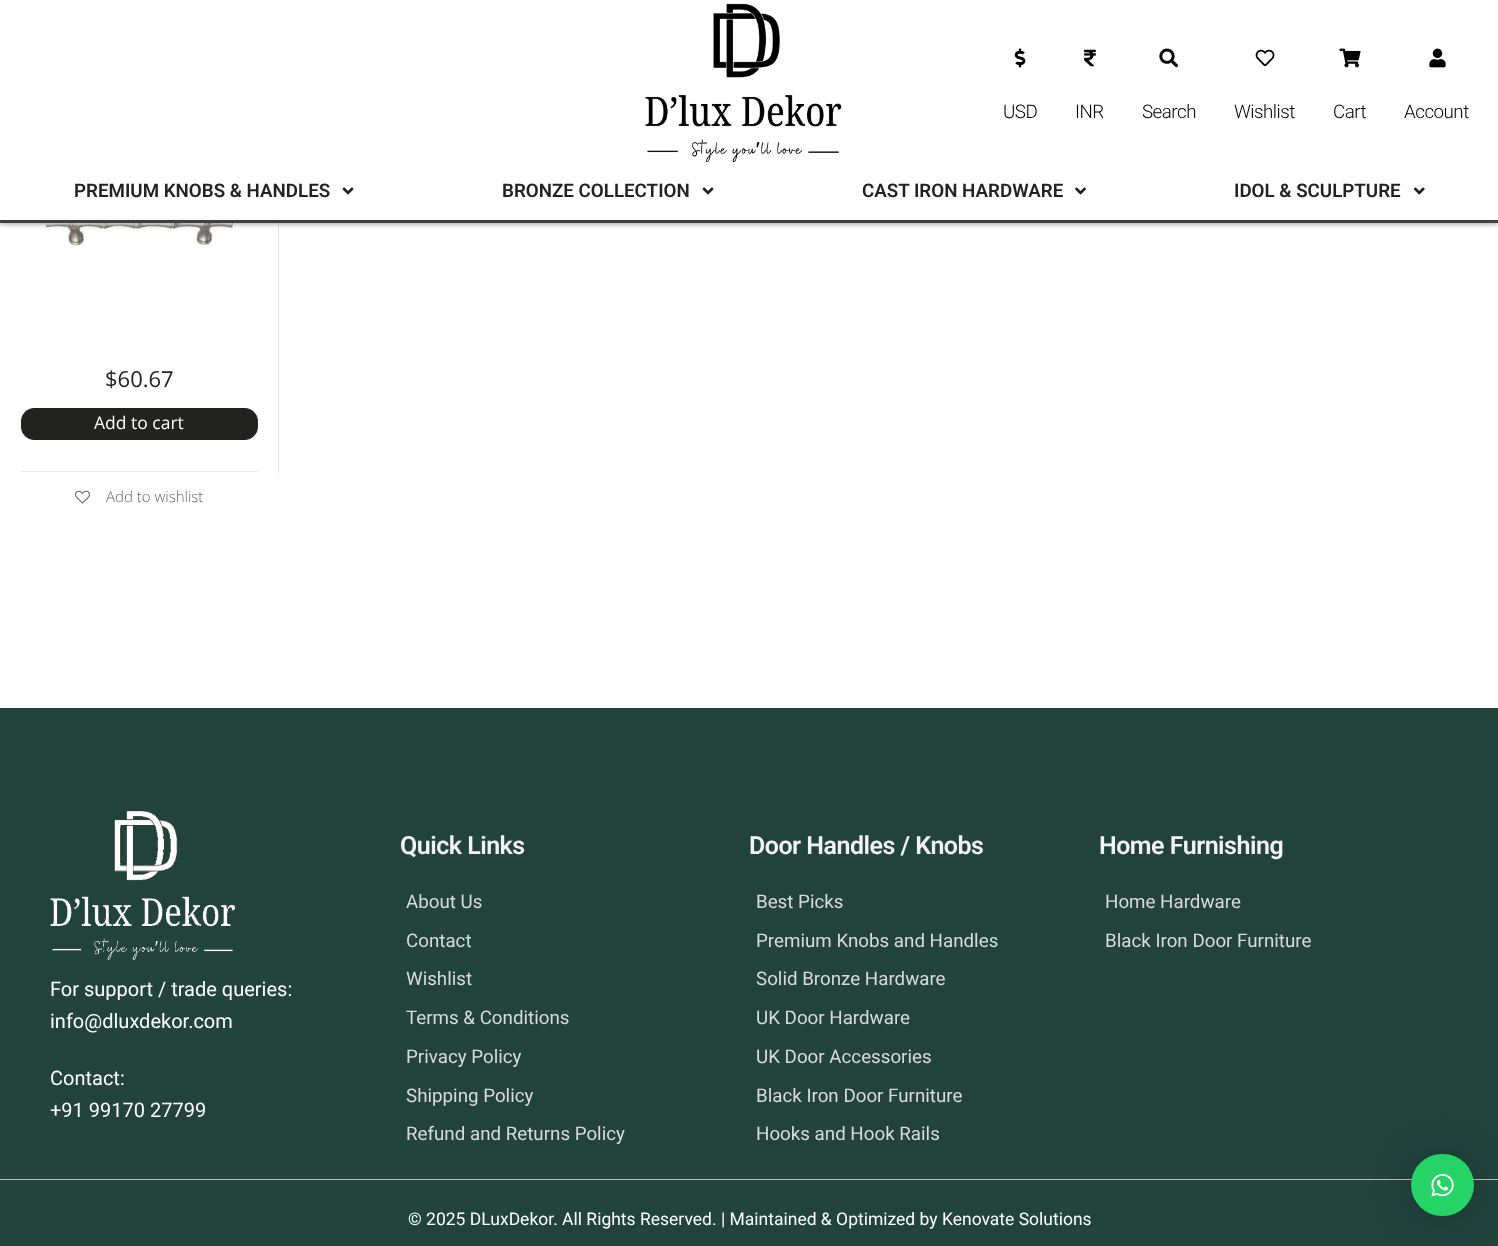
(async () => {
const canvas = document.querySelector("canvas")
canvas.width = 1498
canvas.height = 1246
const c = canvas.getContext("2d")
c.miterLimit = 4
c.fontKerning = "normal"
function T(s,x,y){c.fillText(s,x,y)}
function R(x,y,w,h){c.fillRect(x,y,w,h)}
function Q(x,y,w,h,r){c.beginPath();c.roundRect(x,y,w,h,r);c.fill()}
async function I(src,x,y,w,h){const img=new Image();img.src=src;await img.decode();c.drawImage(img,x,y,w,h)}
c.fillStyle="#fff"
R(0,0,1498,1246)
await I("11.png",40,223,196,25)
c.fillStyle="#e2e2e2"
R(278,223,1,250)
c.fillStyle="#808080"
c.filter="blur(3px)"
c.beginPath()
c.rect(0,0,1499,223)
c.fill()
c.filter="none"
c.fillStyle="#fff"
R(0,0,1498,220)
await I("1.png",645,3,197,160)
await I("2.png",1014,48,12,20)
c.letterSpacing="-0.5px"
c.font="300 18.75px Roboto"
c.fillStyle="#000"
T("USD",1003,118)
await I("3.png",1084,49,12,18)
T("INR",1075,118)
await I("4.png",1159,48,20,20)
T("Search",1142,118)
await I("5.png",1255,49,20,18)
T("Wishlist",1234,118)
await I("6.png",1339,48,22,20)
T("Cart",1333,118)
await I("7.png",1429,48,17,20)
T("Account",1404,118)
c.fillStyle="#404040"
R(0,220,1498,3)
c.letterSpacing="0px"
c.font="600 18.75px Roboto"
c.fillStyle="#222321"
T("PREMIUM KNOBS & HANDLES",74,197)
await I("8.png",342,187,12,8)
T("BRONZE COLLECTION",502,197)
await I("8.png",702,187,12,8)
T("CAST IRON HARDWARE",862,197)
await I("9.png",1075,187,11,8)
T("IDOL & SCULPTURE",1234,197)
await I("10.png",1413,187,12,8)
c.font="22px Open Sans"
T("$60.67",105,387)
c.beginPath()
c.roundRect(21.5,408.5,236,31,12.5)
c.fill()
c.strokeStyle="#222321"
c.stroke()
c.font="17.5px Open Sans"
c.fillStyle="#fff"
T("Add to cart",94,429)
c.fillStyle="#e6e6e6"
R(21,471,237,1)
await I("12.png",75,490,15,14)
c.font="300 15px Open Sans"
c.fillStyle="#666"
T("Add to wishlist",106,502)
c.fillStyle="#21433c"
R(0,708,1498,471)
c.letterSpacing="-0.5px"
c.font="600 25px Roboto"
c.fillStyle="#f4f4f4"
T("Quick Links",400,854)
c.letterSpacing="0px"
c.font="18.75px Roboto"
c.fillStyle="#dadada"
T("About Us",406,908)
T("Contact",406,947)
T("Wishlist",406,985)
T("Terms & Conditions",406,1024)
T("Privacy Policy",406,1063)
T("Shipping Policy",406,1102)
T("Refund and Returns Policy",406,1140)
c.letterSpacing="-0.5px"
c.font="600 25px Roboto"
c.fillStyle="#f4f4f4"
T("Door Handles / Knobs",749,854)
c.letterSpacing="0px"
c.font="18.75px Roboto"
c.fillStyle="#dadada"
T("Best Picks",756,908)
T("Premium Knobs and Handles",756,947)
T("Solid Bronze Hardware",756,985)
T("UK Door Hardware",756,1024)
T("UK Door Accessories",756,1063)
T("Black Iron Door Furniture",756,1102)
T("Hooks and Hook Rails",756,1140)
c.letterSpacing="-0.5px"
c.font="600 25px Roboto"
c.fillStyle="#f4f4f4"
T("Home Furnishing",1099,854)
c.letterSpacing="0px"
c.font="18.75px Roboto"
c.fillStyle="#dadada"
T("Home Hardware",1105,908)
T("Black Iron Door Furniture",1105,947)
await I("13.png",50,810,185,150)
c.font="20px Roboto"
c.fillStyle="#fff"
T("For support / trade queries:",50,996)
T("info@dluxdekor.com",50,1028)
T("Contact:",50,1085)
T("+91 99170 27799",50,1117)
c.fillStyle="#21433c"
R(0,1180,1498,66)
c.fillStyle="#bfbfbf"
R(0,1179,1498,1)
c.font="17.5px Roboto"
c.fillStyle="#fff"
T("© 2025 DLuxDekor. All Rights Reserved. | Maintained & Optimized by Kenovate Solutions",408,1225)
c.fillStyle="#00000029"
c.filter="blur(20px)"
c.beginPath()
c.roundRect(1411,1156,63,63,31.5)
c.fill()
c.filter="none"
c.fillStyle="#0000000f"
c.filter="blur(4px)"
c.beginPath()
c.roundRect(1411,1155,63,63,31.5)
c.fill()
c.filter="none"
c.fillStyle="#25d366"
Q(1411,1154,63,62,31)
await I("14.png",1431,1173,23,24)
})()
